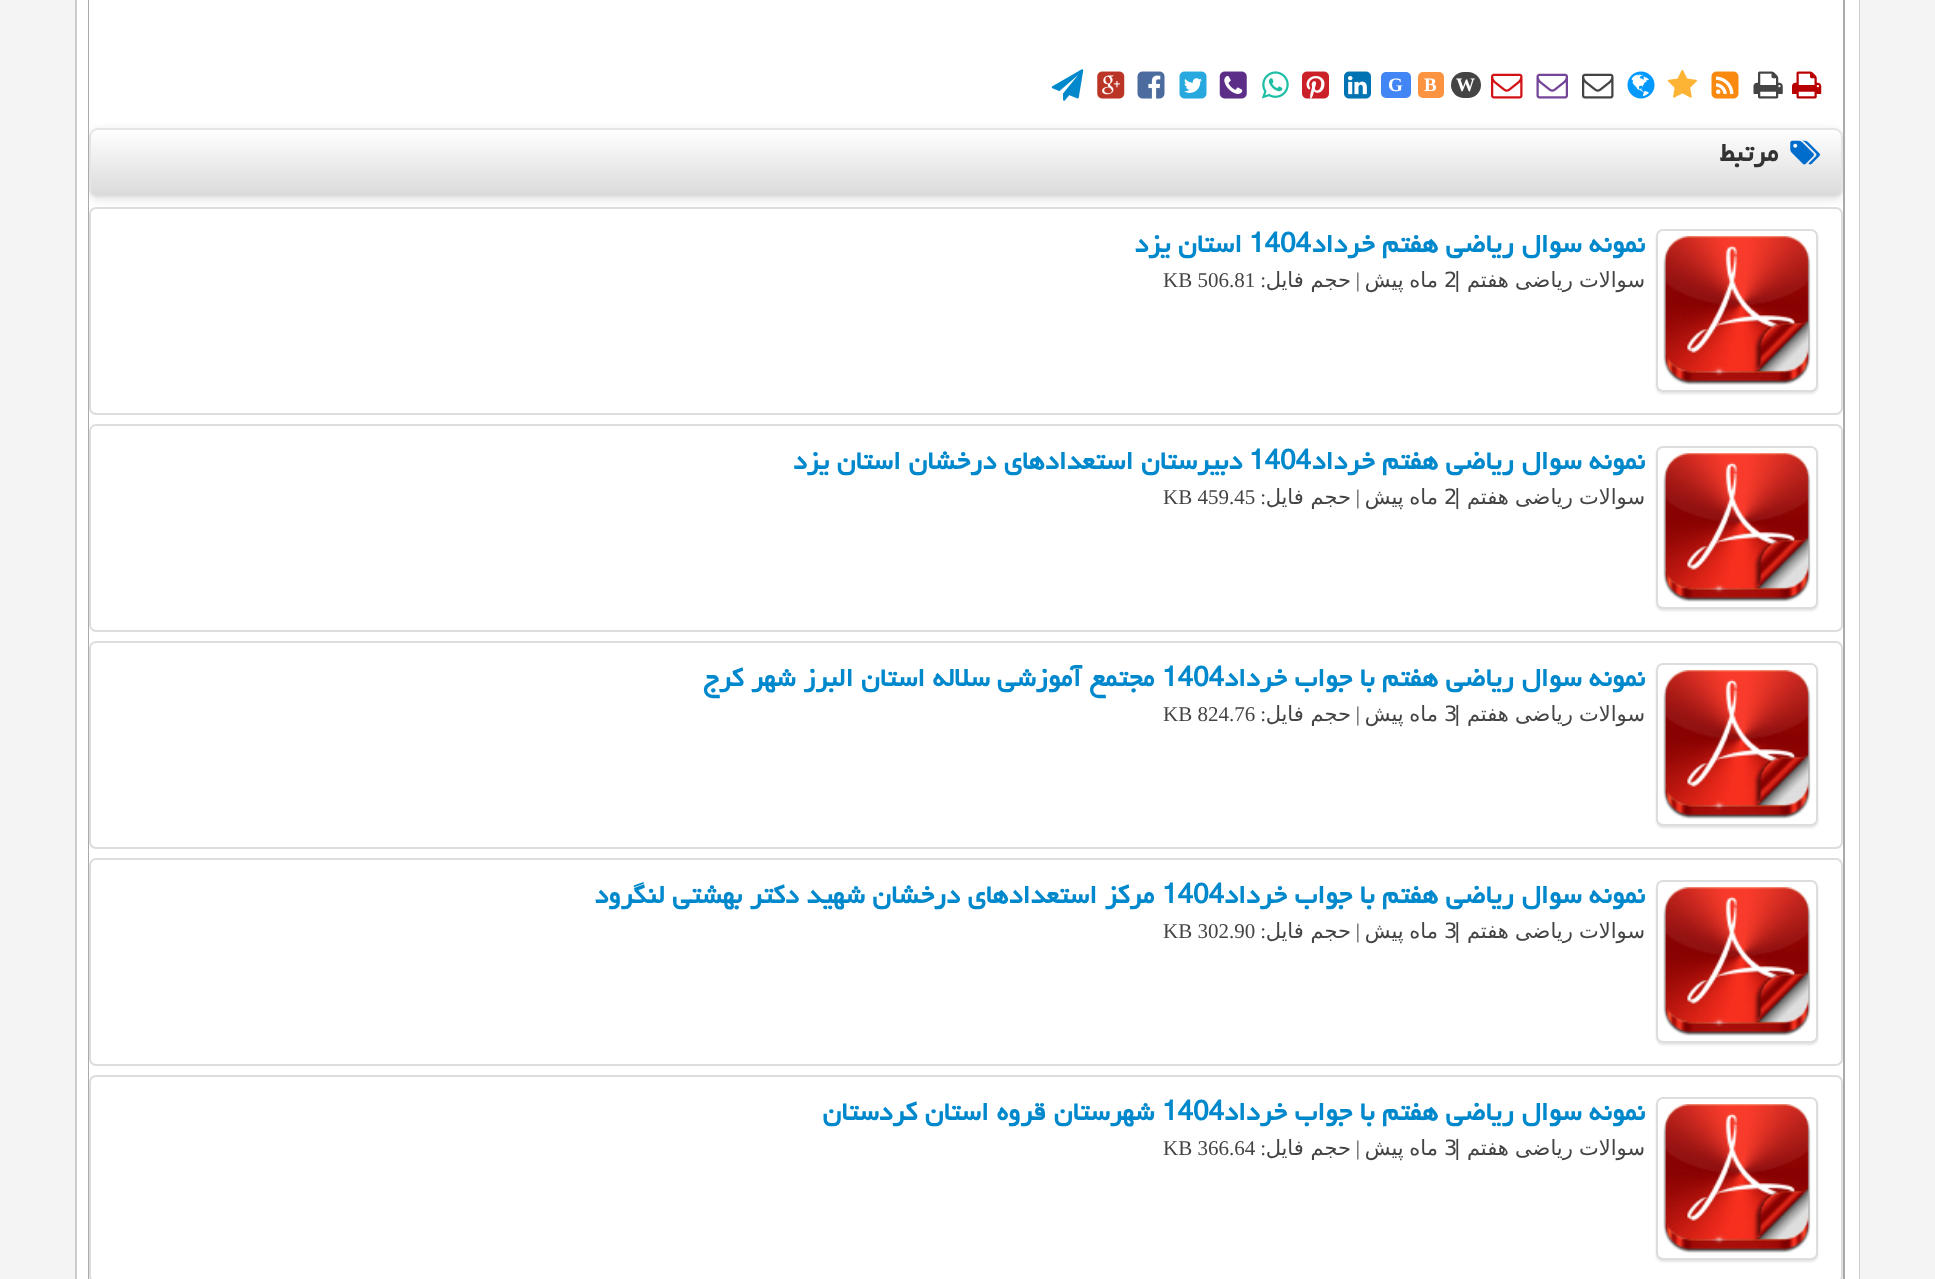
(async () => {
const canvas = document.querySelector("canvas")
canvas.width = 1935
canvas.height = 1279
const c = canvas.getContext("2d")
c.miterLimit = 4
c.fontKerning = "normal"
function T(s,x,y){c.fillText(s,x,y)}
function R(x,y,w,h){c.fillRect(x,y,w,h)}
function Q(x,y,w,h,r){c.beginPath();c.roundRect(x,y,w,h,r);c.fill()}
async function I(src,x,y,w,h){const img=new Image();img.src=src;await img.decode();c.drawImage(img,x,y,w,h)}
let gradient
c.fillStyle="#f4f4f4"
R(0,0,1935,1279)
c.strokeStyle="#ccc"
c.lineWidth=2
c.strokeRect(76,-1,1783,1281)
c.fillStyle="#fff"
R(77,0,1782,1279)
c.strokeStyle="#aaa"
c.strokeRect(89,-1,1755,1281)
R(89,0,1,1279)
await I("1.png",1792,71,30,28)
await I("2.png",1753,71,30,28)
await I("3.png",1711,71,28,28)
await I("4.png",1667,69,30,29)
await I("5.png",1627,71,28,28)
await I("6.png",1582,73,32,26)
await I("7.png",1536,73,32,26)
await I("8.png",1491,73,32,26)
c.fillStyle="#444"
Q(1451,72,30,26,13)
c.font="bold 19px Liberation Serif"
c.fillStyle="#fff"
T("W",1456,91)
c.fillStyle="#fb9341"
Q(1418,72,26,26,5)
c.fillStyle="#fff"
T("B",1424,91)
c.fillStyle="#4285f4"
Q(1381,72,30,26,5)
c.fillStyle="#fff"
T("G",1388,91)
await I("9.png",1344,71,27,28)
await I("10.png",1302,71,27,28)
await I("11.png",1261,71,28,28)
await I("12.png",1219,71,28,28)
await I("13.png",1179,71,28,28)
await I("14.png",1137,71,28,28)
await I("15.png",1097,71,28,28)
await I("16.png",1051,69,33,32)
c.save()
c.beginPath()
c.roundRect(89,-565,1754,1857,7)
c.clip()
c.fillStyle="#0000001a"
c.filter="blur(4.5px)"
c.beginPath()
c.roundRect(89,130,1754,70,9)
c.fill()
c.filter="none"
c.restore()
c.save()
c.beginPath()
c.roundRect(89,128,1754,70,9)
c.clip()
gradient = c.createLinearGradient(966,129,966,196)
gradient.addColorStop(0,"#fff")
gradient.addColorStop(1,"#dadada")
c.fillStyle = gradient
R(89,130,1754,66)
c.restore()
c.beginPath()
c.roundRect(90,129,1752,68,8)
c.strokeStyle="#e5e5e5"
c.stroke()
await I("17.png",1790,140,30,25)
c.direction="rtl"
c.font="bold 31.5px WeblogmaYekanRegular"
c.fillStyle="#333"
T("مرتبط",1778,161)
c.beginPath()
c.roundRect(90,208,1752,206,6)
c.strokeStyle="#ddd"
c.stroke()
c.fillStyle="#0000001a"
c.filter="blur(1px)"
c.beginPath()
c.roundRect(1656,231,162,163,7)
c.fill()
c.filter="none"
c.fillStyle="#fff"
c.beginPath()
c.roundRect(1657,230,160,161,6)
c.fill()
c.stroke()
await I("18.png",1663,236,148,149)
c.fillStyle="#08c"
T("نمونه سوال ریاضی هفتم خرداد",1645,252)
c.direction="ltr"
T("1404",1249,252)
c.direction="rtl"
T("استان یزد",1242,252)
c.wordSpacing="-0.5px"
c.font="21px DejaVu Sans"
c.fillStyle="#444"
T("سوالات ریاضی هفتم |",1645,287)
c.wordSpacing="0px"
c.direction="ltr"
T("2",1444,287)
c.wordSpacing="-1px"
c.direction="rtl"
T("ماه پیش",1438,287)
c.wordSpacing="0px"
c.font="21px Liberation Serif"
T("|",1360,287)
c.font="21px DejaVu Sans"
T("حجم فایل",1351,287)
c.font="21px Liberation Serif"
T(":",1266,287)
c.direction="ltr"
T("KB 506.81",1163,287)
c.beginPath()
c.roundRect(90,425,1752,206,6)
c.stroke()
c.fillStyle="#0000001a"
c.filter="blur(1px)"
c.beginPath()
c.roundRect(1656,448,162,163,7)
c.fill()
c.filter="none"
c.fillStyle="#fff"
c.beginPath()
c.roundRect(1657,447,160,161,6)
c.fill()
c.stroke()
await I("18.png",1663,453,148,149)
c.direction="rtl"
c.font="bold 31.5px WeblogmaYekanRegular"
c.fillStyle="#08c"
T("نمونه سوال ریاضی هفتم خرداد",1645,469)
c.direction="ltr"
T("1404",1249,469)
c.direction="rtl"
T("دبیرستان استعدادهای درخشان استان یزد",1242,469)
c.wordSpacing="-0.5px"
c.font="21px DejaVu Sans"
c.fillStyle="#444"
T("سوالات ریاضی هفتم |",1645,504)
c.wordSpacing="0px"
c.direction="ltr"
T("2",1444,504)
c.wordSpacing="-1px"
c.direction="rtl"
T("ماه پیش",1438,504)
c.wordSpacing="0px"
c.font="21px Liberation Serif"
T("|",1360,504)
c.font="21px DejaVu Sans"
T("حجم فایل",1351,504)
c.font="21px Liberation Serif"
T(":",1266,504)
c.direction="ltr"
T("KB 459.45",1163,504)
c.beginPath()
c.roundRect(90,642,1752,206,6)
c.stroke()
c.fillStyle="#0000001a"
c.filter="blur(1px)"
c.beginPath()
c.roundRect(1656,665,162,163,7)
c.fill()
c.filter="none"
c.fillStyle="#fff"
c.beginPath()
c.roundRect(1657,664,160,161,6)
c.fill()
c.stroke()
await I("18.png",1663,670,148,149)
c.direction="rtl"
c.font="bold 31.5px WeblogmaYekanRegular"
c.fillStyle="#08c"
T("نمونه سوال ریاضی هفتم با جواب خرداد",1645,686)
c.direction="ltr"
T("1404",1162,686)
c.direction="rtl"
T("مجتمع آموزشی سلاله استان البرز شهر کرج",1154,686)
c.wordSpacing="-0.5px"
c.font="21px DejaVu Sans"
c.fillStyle="#444"
T("سوالات ریاضی هفتم |",1645,721)
c.wordSpacing="0px"
c.direction="ltr"
T("3",1444,721)
c.wordSpacing="-1px"
c.direction="rtl"
T("ماه پیش",1438,721)
c.wordSpacing="0px"
c.font="21px Liberation Serif"
T("|",1360,721)
c.font="21px DejaVu Sans"
T("حجم فایل",1351,721)
c.font="21px Liberation Serif"
T(":",1266,721)
c.direction="ltr"
T("KB 824.76",1163,721)
c.beginPath()
c.roundRect(90,859,1752,206,6)
c.stroke()
c.fillStyle="#0000001a"
c.filter="blur(1px)"
c.beginPath()
c.roundRect(1656,882,162,163,7)
c.fill()
c.filter="none"
c.fillStyle="#fff"
c.beginPath()
c.roundRect(1657,881,160,161,6)
c.fill()
c.stroke()
await I("18.png",1663,887,148,149)
c.direction="rtl"
c.font="bold 31.5px WeblogmaYekanRegular"
c.fillStyle="#08c"
T("نمونه سوال ریاضی هفتم با جواب خرداد",1645,903)
c.direction="ltr"
T("1404",1162,903)
c.direction="rtl"
T("مرکز استعدادهای درخشان شهید دکتر بهشتی لنگرود",1154,903)
c.wordSpacing="-0.5px"
c.font="21px DejaVu Sans"
c.fillStyle="#444"
T("سوالات ریاضی هفتم |",1645,938)
c.wordSpacing="0px"
c.direction="ltr"
T("3",1444,938)
c.wordSpacing="-1px"
c.direction="rtl"
T("ماه پیش",1438,938)
c.wordSpacing="0px"
c.font="21px Liberation Serif"
T("|",1360,938)
c.font="21px DejaVu Sans"
T("حجم فایل",1351,938)
c.font="21px Liberation Serif"
T(":",1266,938)
c.direction="ltr"
T("KB 302.90",1163,938)
c.beginPath()
c.roundRect(90,1076,1752,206,6)
c.stroke()
c.fillStyle="#0000001a"
c.filter="blur(1px)"
c.beginPath()
c.roundRect(1656,1099,162,163,7)
c.fill()
c.filter="none"
c.fillStyle="#fff"
c.beginPath()
c.roundRect(1657,1098,160,161,6)
c.fill()
c.stroke()
await I("18.png",1663,1104,148,149)
c.direction="rtl"
c.font="bold 31.5px WeblogmaYekanRegular"
c.fillStyle="#08c"
T("نمونه سوال ریاضی هفتم با جواب خرداد",1645,1120)
c.direction="ltr"
T("1404",1162,1120)
c.direction="rtl"
T("شهرستان قروه استان کردستان",1154,1120)
c.wordSpacing="-0.5px"
c.font="21px DejaVu Sans"
c.fillStyle="#444"
T("سوالات ریاضی هفتم |",1645,1155)
c.wordSpacing="0px"
c.direction="ltr"
T("3",1444,1155)
c.wordSpacing="-1px"
c.direction="rtl"
T("ماه پیش",1438,1155)
c.wordSpacing="0px"
c.font="21px Liberation Serif"
T("|",1360,1155)
c.font="21px DejaVu Sans"
T("حجم فایل",1351,1155)
c.font="21px Liberation Serif"
T(":",1266,1155)
c.direction="ltr"
T("KB 366.64",1163,1155)
})()
